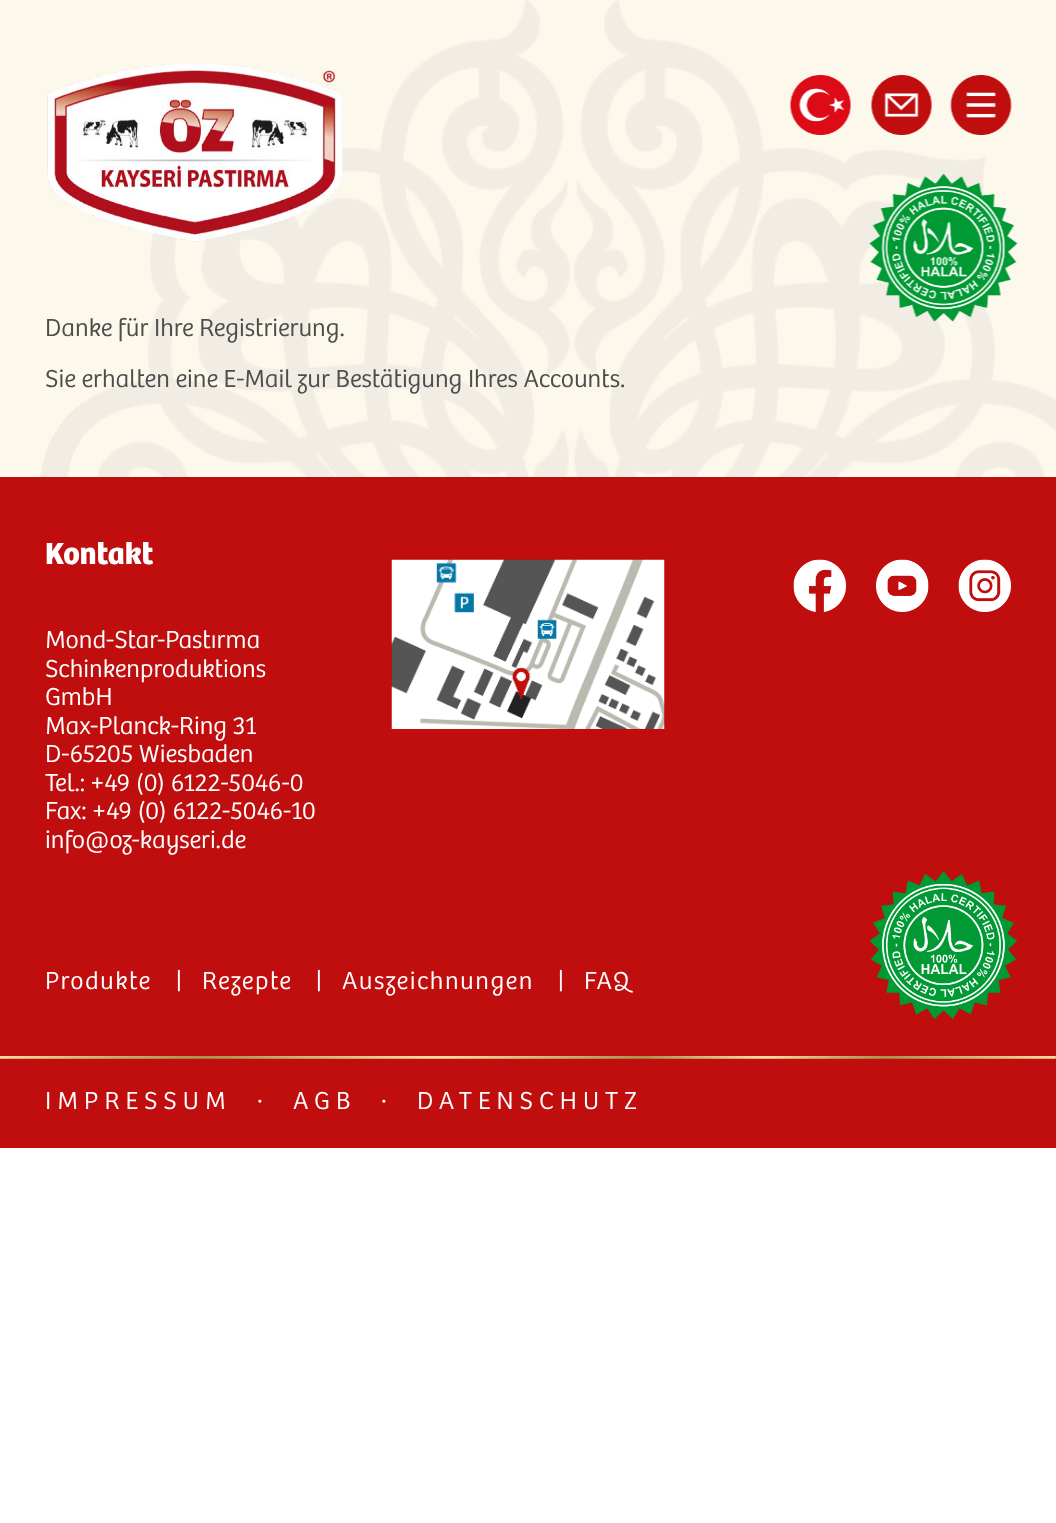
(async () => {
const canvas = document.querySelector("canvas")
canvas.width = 1056
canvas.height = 1523
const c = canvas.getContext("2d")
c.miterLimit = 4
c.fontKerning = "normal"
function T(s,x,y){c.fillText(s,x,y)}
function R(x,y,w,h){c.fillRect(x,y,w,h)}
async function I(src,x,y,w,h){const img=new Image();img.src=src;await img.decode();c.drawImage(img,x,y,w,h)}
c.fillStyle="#fff"
R(0,0,1056,1523)
c.fillStyle="#fdf8ec"
R(0,0,1056,477)
await I("6.png",40,0,1016,477)
await I("1.png",47,63,296,179)
await I("2.png",790,75,61,60)
await I("3.png",871,75,61,60)
await I("4.png",950,75,62,60)
await I("5.png",869,173,149,149)
c.font="300 25.5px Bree"
c.fillStyle="#4d4d4d"
T("Danke für Ihre Registrierung.",45,336)
T("Sie erhalten eine E-Mail zur Bestätigung Ihres Accounts.",45,387)
c.fillStyle="#c00d0d"
R(0,477,1056,671)
c.font="bold 31.5px Bree"
c.fillStyle="#fff"
T("Kontakt",45,564)
c.font="300 25.5px Bree"
T("Mond-Star-Pastırma",45,648)
T("Schinkenproduktions",45,677)
T("GmbH",45,705)
T("Max-Planck-Ring 31",45,734)
T("D-65205 Wiesbaden",45,762)
T("Tel.: +49 (0) 6122-5046-0",45,791)
T("Fax: +49 (0) 6122-5046-10",45,819)
T("info@oz-kayseri.de",45,848)
await I("7.png",391,559,274,170)
await I("8.png",793,559,53,53)
await I("9.png",876,559,53,53)
await I("10.png",958,559,53,53)
c.letterSpacing="1.5px"
T("Produkte",45,989)
T("|",176,989)
T("Rezepte",202,989)
T("|",316,989)
T("Auszeichnungen",342,989)
T("|",558,989)
T("FAQ",584,989)
await I("11.png",869,871,149,149)
await I("12.png",0,1056,1056,3)
c.letterSpacing="6px"
T("IMPRESSUM",45,1109)
T("·",256,1109)
T("AGB",293,1109)
T("·",380,1109)
T("DATENSCHUTZ",417,1109)
})()
